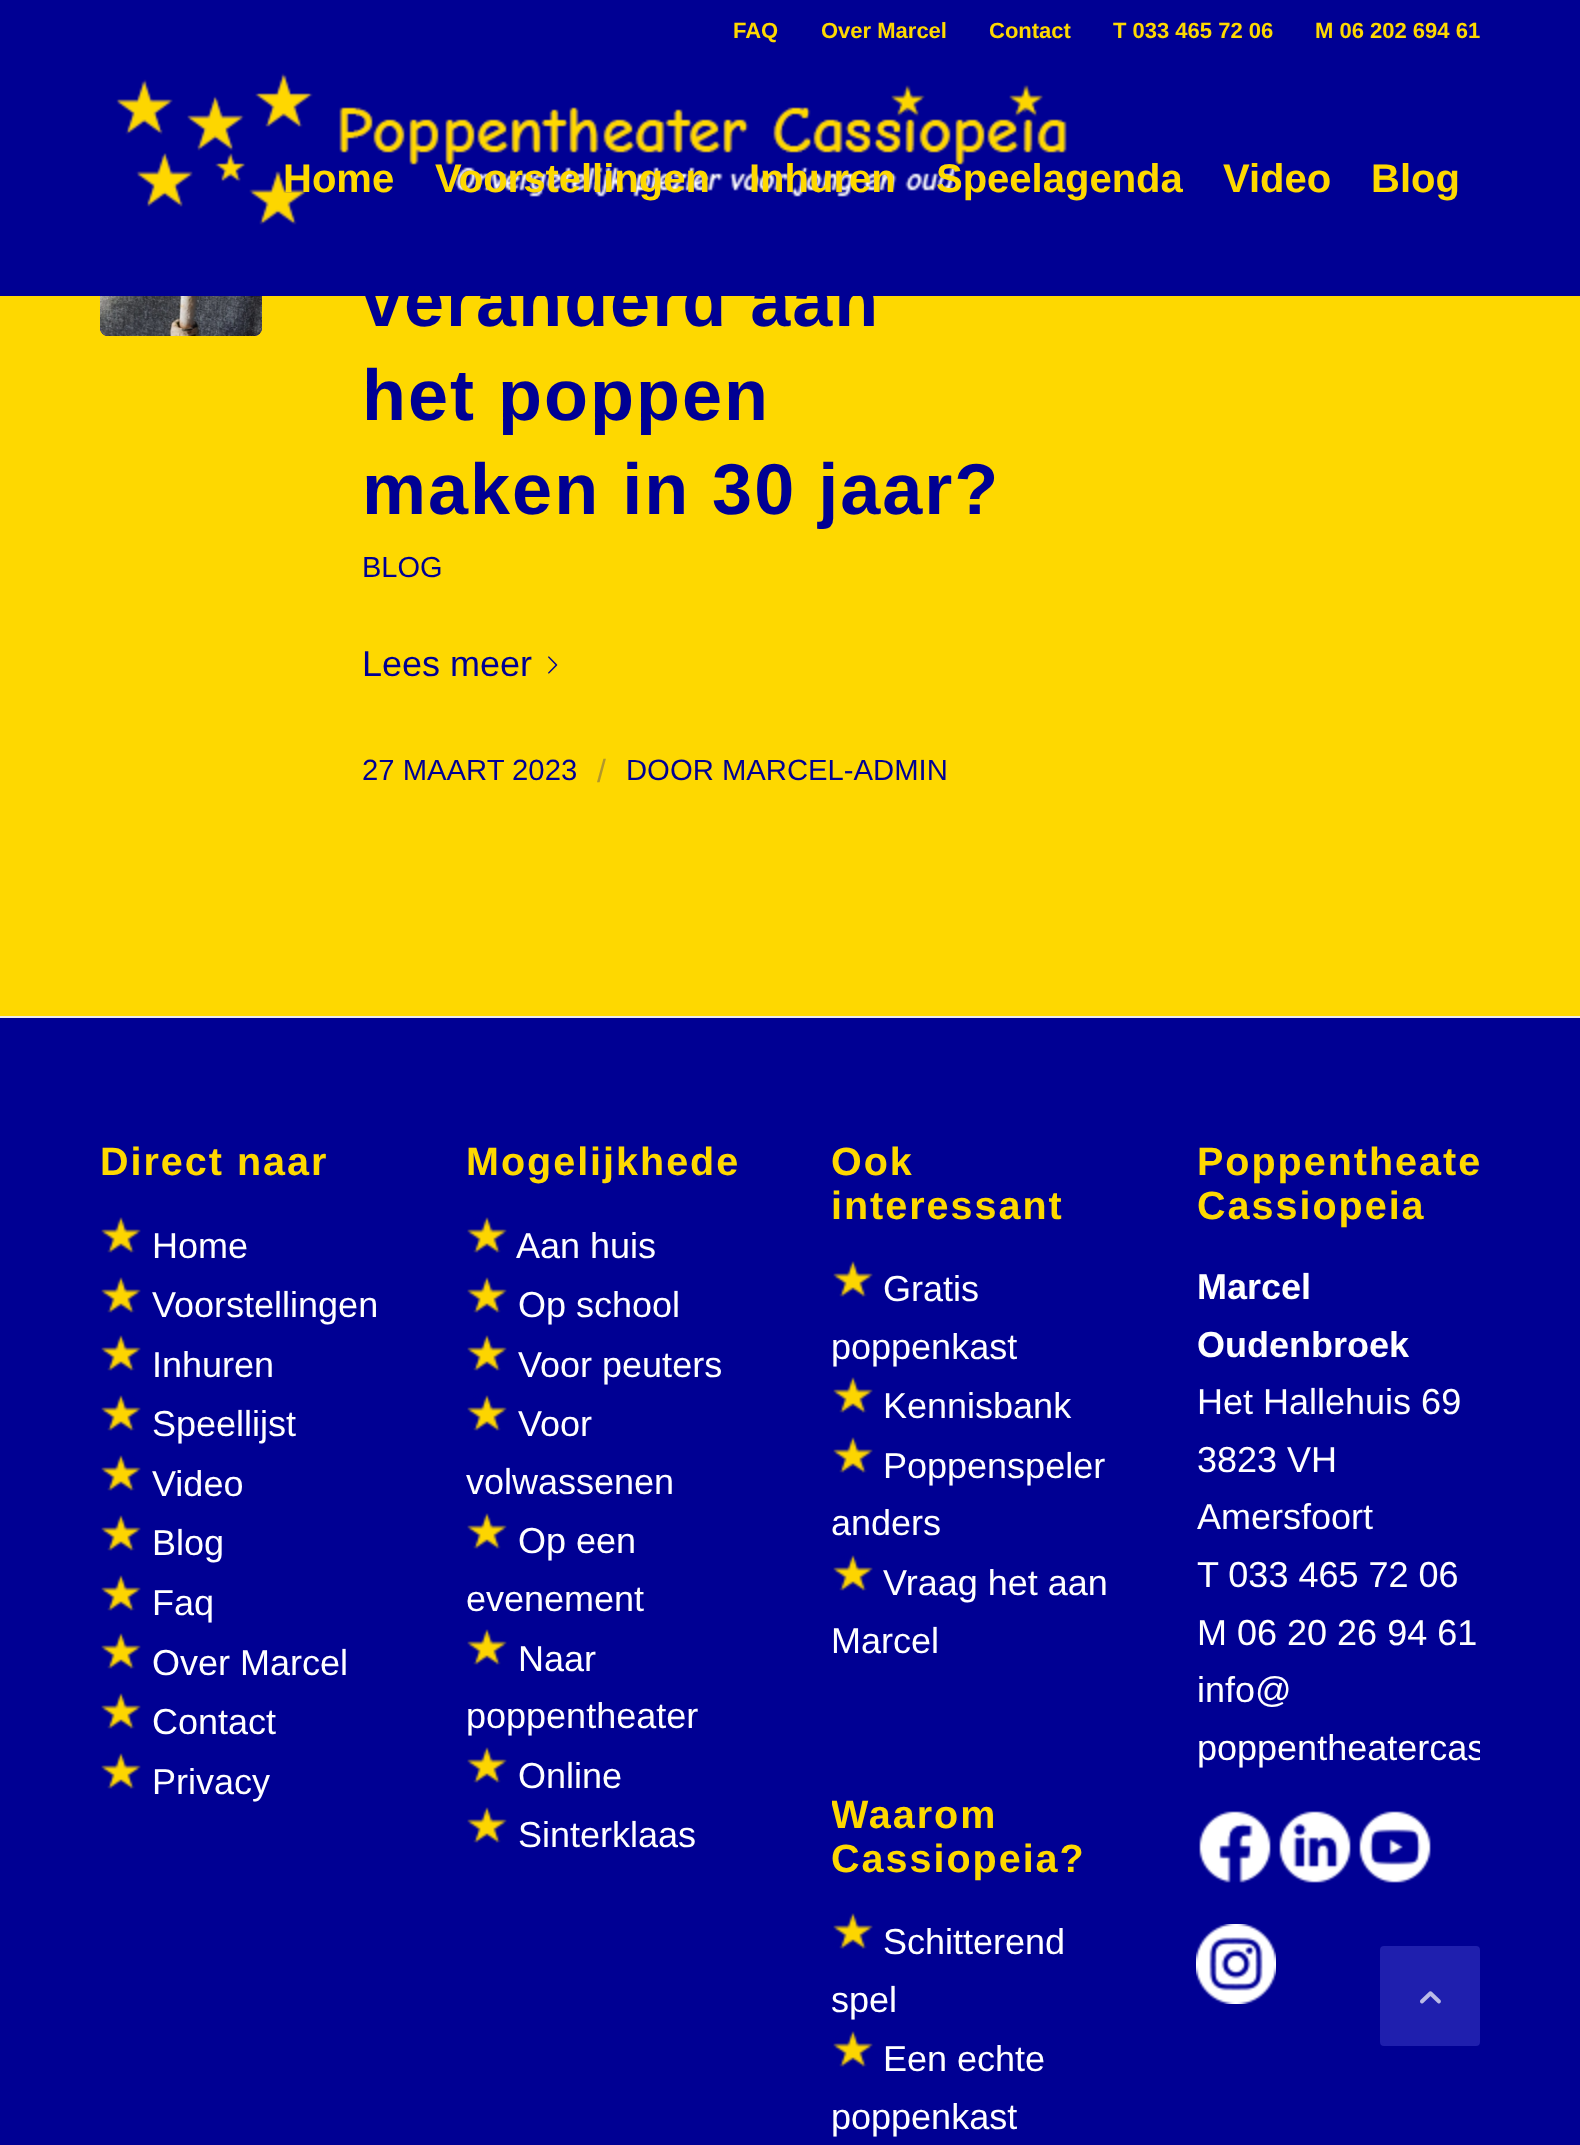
(async () => {
const canvas = document.querySelector("canvas")
canvas.width = 1580
canvas.height = 2145
const c = canvas.getContext("2d")
c.miterLimit = 4
c.fontKerning = "normal"
function T(s,x,y){c.fillText(s,x,y)}
function R(x,y,w,h){c.fillRect(x,y,w,h)}
function Q(x,y,w,h,r){c.beginPath();c.roundRect(x,y,w,h,r);c.fill()}
async function I(src,x,y,w,h){const img=new Image();img.src=src;await img.decode();c.drawImage(img,x,y,w,h)}
c.fillStyle="#000093"
R(0,0,1580,2145)
c.font="bold 22px Liberation Sans"
c.fillStyle="#fed800"
T("FAQ",733,38)
T("Over Marcel",821,38)
T("Contact",989,38)
T("T 033 465 72 06",1113,38)
T("M 06 202 694 61",1315,38)
R(0,296,1580,720)
c.fillStyle="#000093"
Q(100,174,162,162,8)
await I("1.png",116,73,951,152)
c.font="bold 40px Liberation Sans"
c.fillStyle="#fed800"
T("Home",283,192)
T("Voorstellingen",435,192)
T("Inhuren",749,192)
T("Speelagenda",936,192)
T("Video",1223,192)
T("Blog",1371,192)
await I("2.png",100,296,162,40)
c.letterSpacing="2px"
c.font="bold 72px Liberation Sans"
c.fillStyle="#000093"
T("veranderd aan",362,326)
T("het poppen",362,420)
T("maken in 30 jaar?",362,514)
c.letterSpacing="0px"
c.font="29px Liberation Sans"
T("BLOG",362,577)
c.font="36px Liberation Sans"
T("Lees meer",362,676)
await I("3.png",548,656,10,18)
c.font="29.25px Liberation Sans"
T("27 MAART 2023",362,780)
c.font="32px Liberation Sans"
c.fillStyle="#b2972c"
T("/",597,782)
c.font="29.25px Liberation Sans"
c.fillStyle="#000093"
T("DOOR MARCEL-ADMIN",626,780)
c.fillStyle="#ebebeb"
R(0,1016,1580,2)
c.letterSpacing="2px"
c.font="bold 39.5px Liberation Sans"
c.fillStyle="#fed800"
T("Direct naar",100,1175)
await I("4.png",101,1217,40,36)
c.letterSpacing="0px"
c.font="36px Liberation Sans"
c.fillStyle="#fff"
T("Home",152,1258)
await I("4.png",101,1277,40,36)
T("Voorstellingen",152,1317)
await I("4.png",101,1335,40,36)
T("Inhuren",152,1377)
await I("4.png",101,1395,40,36)
T("Speellijst",152,1436)
await I("4.png",101,1455,40,36)
T("Video",152,1496)
await I("4.png",101,1515,40,36)
T("Blog",152,1555)
await I("4.png",101,1575,40,36)
T("Faq",152,1615)
await I("4.png",101,1633,40,36)
T("Over Marcel",152,1675)
await I("4.png",101,1693,40,36)
T("Contact",152,1734)
await I("4.png",101,1753,40,36)
T("Privacy",152,1794)
c.letterSpacing="2px"
c.font="bold 39.5px Liberation Sans"
c.fillStyle="#fed800"
T("Mogelijkhede",466,1175)
await I("4.png",467,1217,40,36)
c.letterSpacing="0px"
c.font="36px Liberation Sans"
c.fillStyle="#fff"
T("Aan huis",516,1258)
await I("4.png",467,1277,40,36)
T("Op school",518,1317)
await I("4.png",467,1335,40,36)
T("Voor peuters",518,1377)
await I("4.png",467,1395,40,36)
T("Voor",518,1436)
T("volwassenen",466,1494)
await I("4.png",467,1513,40,36)
T("Op een",518,1553)
T("evenement",466,1611)
await I("4.png",467,1629,40,36)
T("Naar",518,1671)
T("poppentheater",466,1728)
await I("4.png",467,1747,40,36)
T("Online",518,1788)
await I("4.png",467,1807,40,36)
T("Sinterklaas",518,1847)
c.letterSpacing="2px"
c.font="bold 39.5px Liberation Sans"
c.fillStyle="#fed800"
T("Ook",831,1175)
T("interessant",831,1219)
await I("4.png",833,1261,40,36)
c.letterSpacing="0px"
c.font="36px Liberation Sans"
c.fillStyle="#fff"
T("Gratis",883,1301)
T("poppenkast",831,1359)
await I("4.png",833,1377,40,36)
T("Kennisbank",883,1418)
await I("4.png",833,1437,40,36)
T("Poppenspeler",883,1478)
T("anders",831,1535)
await I("4.png",833,1555,40,36)
T("Vraag het aan",883,1595)
T("Marcel",831,1653)
c.save()
c.beginPath()
c.rect(832,1760,282,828)
c.clip()
c.letterSpacing="2px"
c.font="bold 39.5px Liberation Sans"
c.fillStyle="#fed800"
T("Waarom",831,1828)
c.restore()
c.letterSpacing="2px"
c.font="bold 39.5px Liberation Sans"
c.fillStyle="#fed800"
T("Cassiopeia?",831,1872)
await I("4.png",833,1913,40,36)
c.letterSpacing="0px"
c.font="36px Liberation Sans"
c.fillStyle="#fff"
T("Schitterend",883,1954)
T("spel",831,2012)
await I("4.png",833,2031,40,36)
T("Een echte",883,2071)
T("poppenkast",831,2129)
c.letterSpacing="2px"
c.font="bold 39.5px Liberation Sans"
c.fillStyle="#fed800"
T("Poppentheate",1197,1175)
T("Cassiopeia",1197,1219)
c.letterSpacing="0px"
c.font="bold 36px Liberation Sans"
c.fillStyle="#fff"
T("Marcel",1197,1299)
T("Oudenbroek",1197,1357)
c.font="36px Liberation Sans"
T("Het Hallehuis 69",1197,1414)
T("3823 VH",1197,1472)
T("Amersfoort",1197,1529)
T("T 033 465 72 06",1197,1587)
T("M 06 20 26 94 61",1197,1645)
T("info@",1197,1702)
c.save()
c.beginPath()
c.rect(1196,1108,284,960)
c.clip()
T("poppentheatercas",1197,1760)
c.restore()
await I("5.png",1199,1811,72,72)
await I("6.png",1279,1811,72,72)
await I("7.png",1359,1811,72,72)
await I("8.png",1196,1924,80,80)
c.fillStyle="#1f1fae"
c.beginPath()
c.roundRect(1381,1947,98,98,3)
c.fill()
c.strokeStyle="#1f1fae"
c.lineWidth=2
c.stroke()
await I("9.png",1420,1991,21,13)
})()
